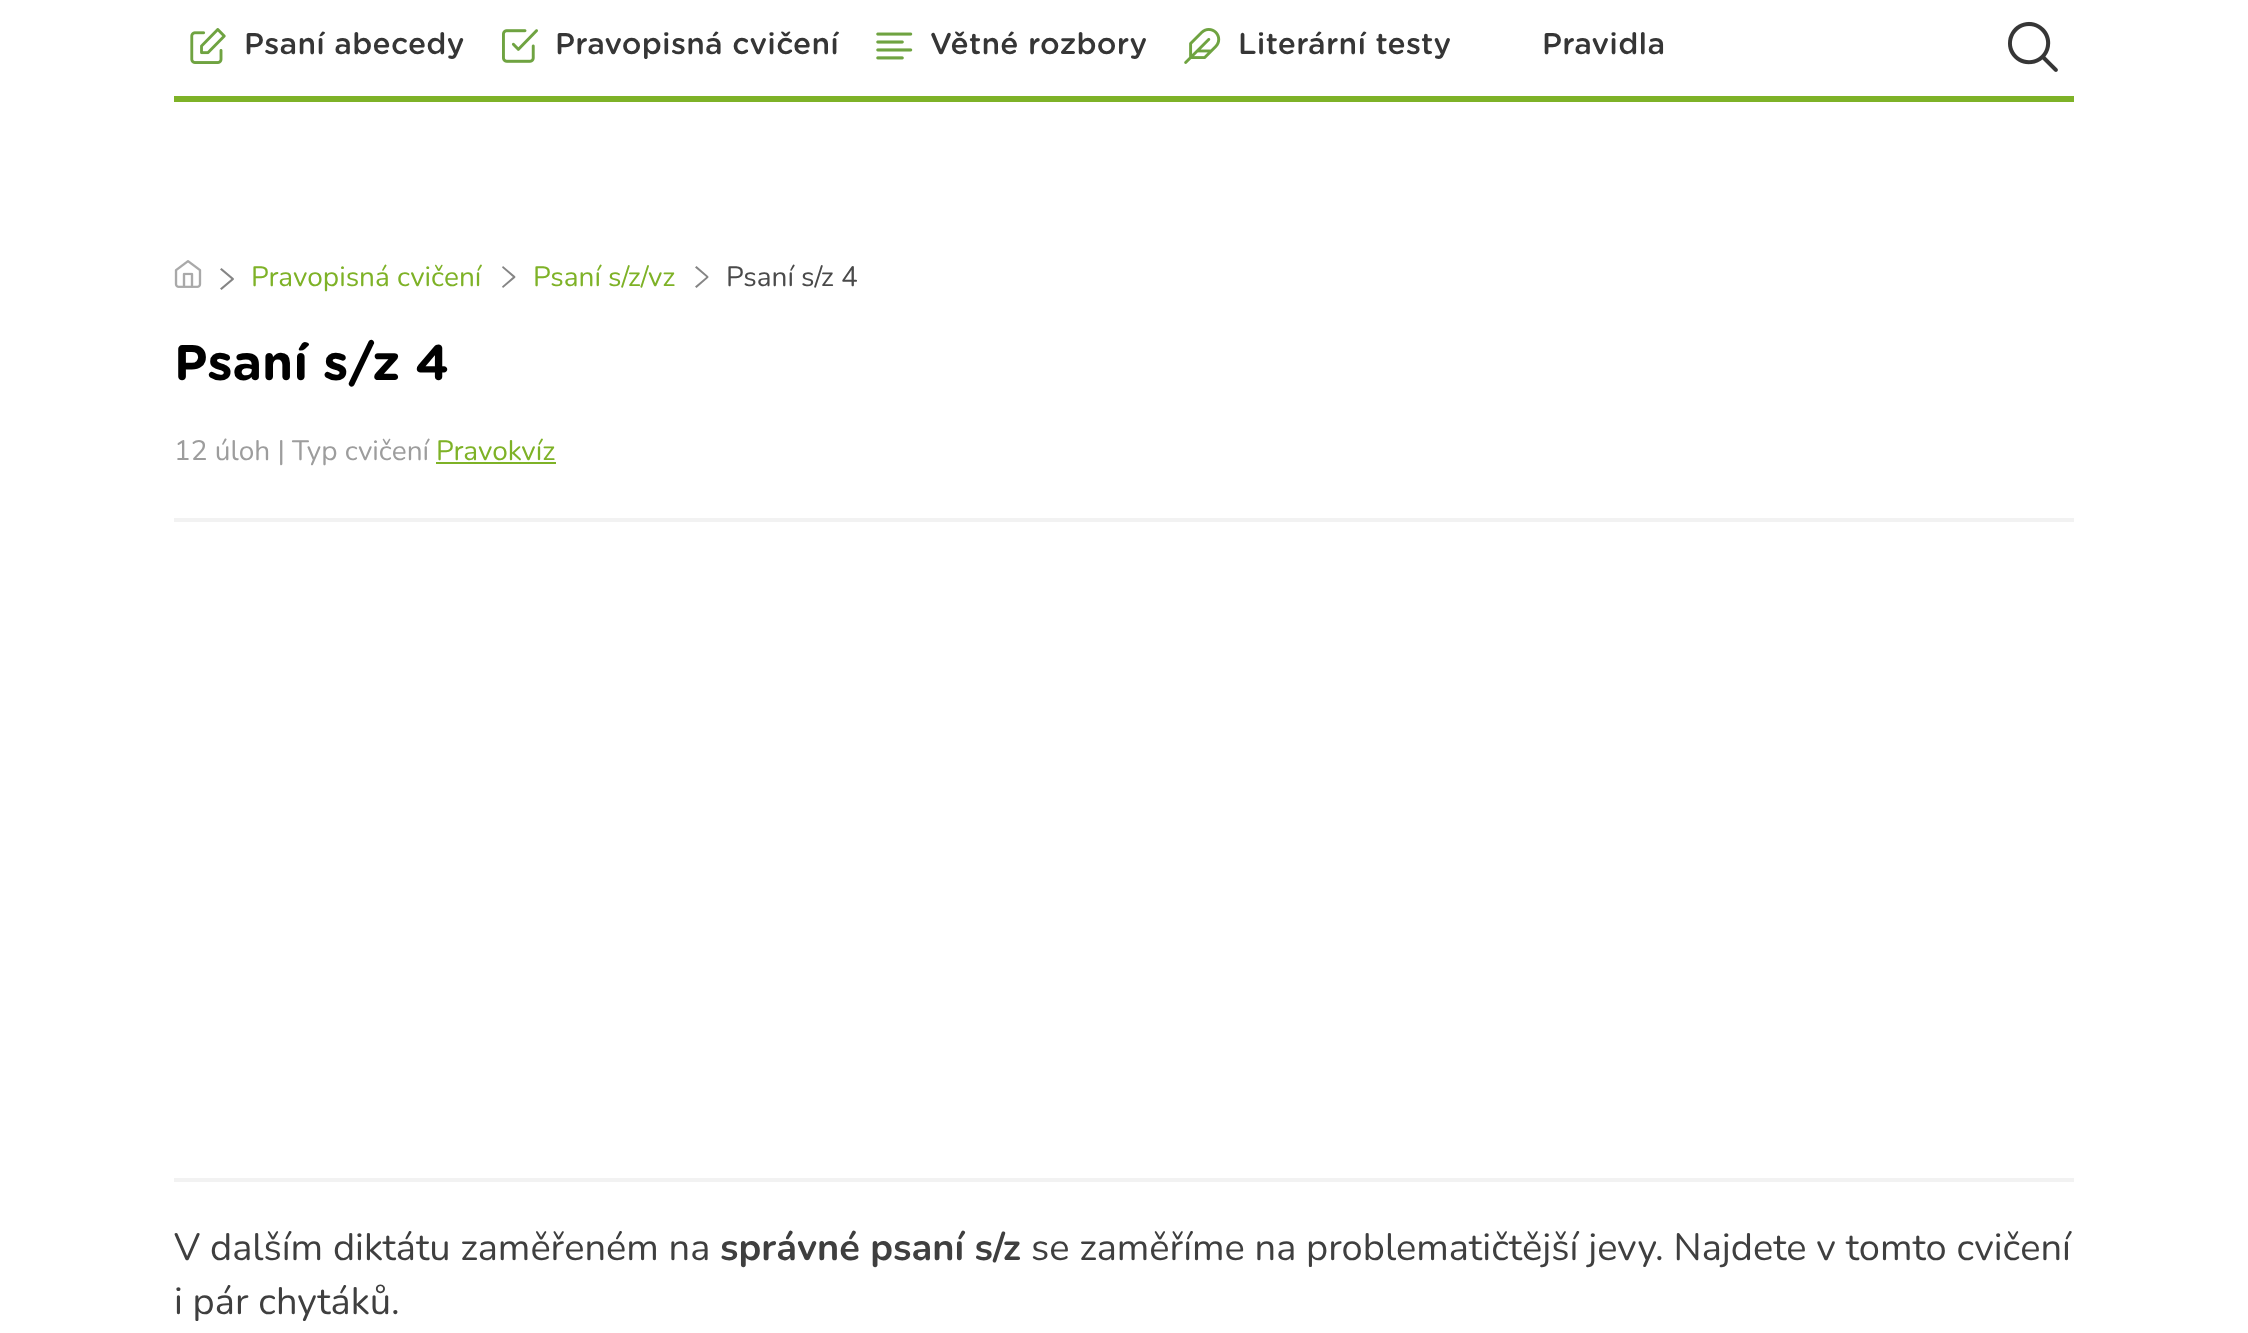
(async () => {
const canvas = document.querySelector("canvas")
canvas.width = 2248
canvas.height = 1333
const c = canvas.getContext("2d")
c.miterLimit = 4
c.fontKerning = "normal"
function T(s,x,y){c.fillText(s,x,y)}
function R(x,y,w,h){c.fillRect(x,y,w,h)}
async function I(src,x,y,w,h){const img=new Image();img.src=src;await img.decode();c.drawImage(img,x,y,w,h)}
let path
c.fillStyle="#fff"
R(0,0,2248,1333)
c.fillStyle="#7eb227"
R(174,96,1900,6)
await I("1.png",190,28,36,36)
c.letterSpacing="0.25px"
c.font="500 30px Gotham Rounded"
c.fillStyle="#363636"
T("Psaní abecedy",244,54)
await I("2.png",502,29,36,34)
T("Pravopisná cvičení",555,54)
await I("3.png",876,32,37,28)
T("Větné rozbory",930,54)
await I("4.png",1184,28,37,36)
T("Literární testy",1238,54)
T("Pravidla",1542,54)
await I("5.png",2008,21,50,51)
await I("6.png",174,260,28,28)
c.fillStyle="#858585"
path = new Path2D("M232.5 278l1.5 1.5l-12.5 10.5l-1.5-1.5z")
c.fill(path)
path = new Path2D("M220 269.5l1.5-1.5l12.5 10.5l-1.5 1.5z")
c.fill(path)
c.letterSpacing="0px"
c.font="28px Nunito"
c.fillStyle="#7eb227"
T("Pravopisná cvičení",251,286)
c.fillStyle="#858585"
path = new Path2D("M514 276l1.5 1.5l-12.5 10.5l-1-1.5z")
c.fill(path)
path = new Path2D("M502 267.5l1-1.5l12.5 10.5l-1.5 1.5z")
c.fill(path)
c.fillStyle="#7eb227"
T("Psaní s/z/vz",533,286)
c.fillStyle="#858585"
path = new Path2D("M707.5 276l1 1.5l-12 10.5l-1.5-1.5z")
c.fill(path)
path = new Path2D("M695 267.5l1.5-1.5l12 10.5l-1 1.5z")
c.fill(path)
c.fillStyle="#4a4a4a"
T("Psaní s/z 4",726,286)
c.font="bold 50px Gotham Rounded"
c.fillStyle="#000"
T("Psaní s/z 4",174,380)
c.font="28px Nunito"
c.fillStyle="#9d9d9d"
T("12 úloh | Typ cvičení",174,460)
c.fillStyle="#7eb227"
T("Pravokvíz",436,460)
R(436,462,120,2)
c.fillStyle="#f2f2f2"
R(174,518,1900,4)
R(174,1178,1900,4)
c.font="38px Nunito"
c.fillStyle="#3f3f3f"
T("V dalším diktátu zaměřeném na",174,1260)
c.font="bold 38px Nunito"
T("správné psaní s/z",720,1260)
c.font="38px Nunito"
T("se zaměříme na problematičtější jevy. Najdete v tomto cvičení",1031,1260)
T("i pár chytáků.",174,1314)
})()
